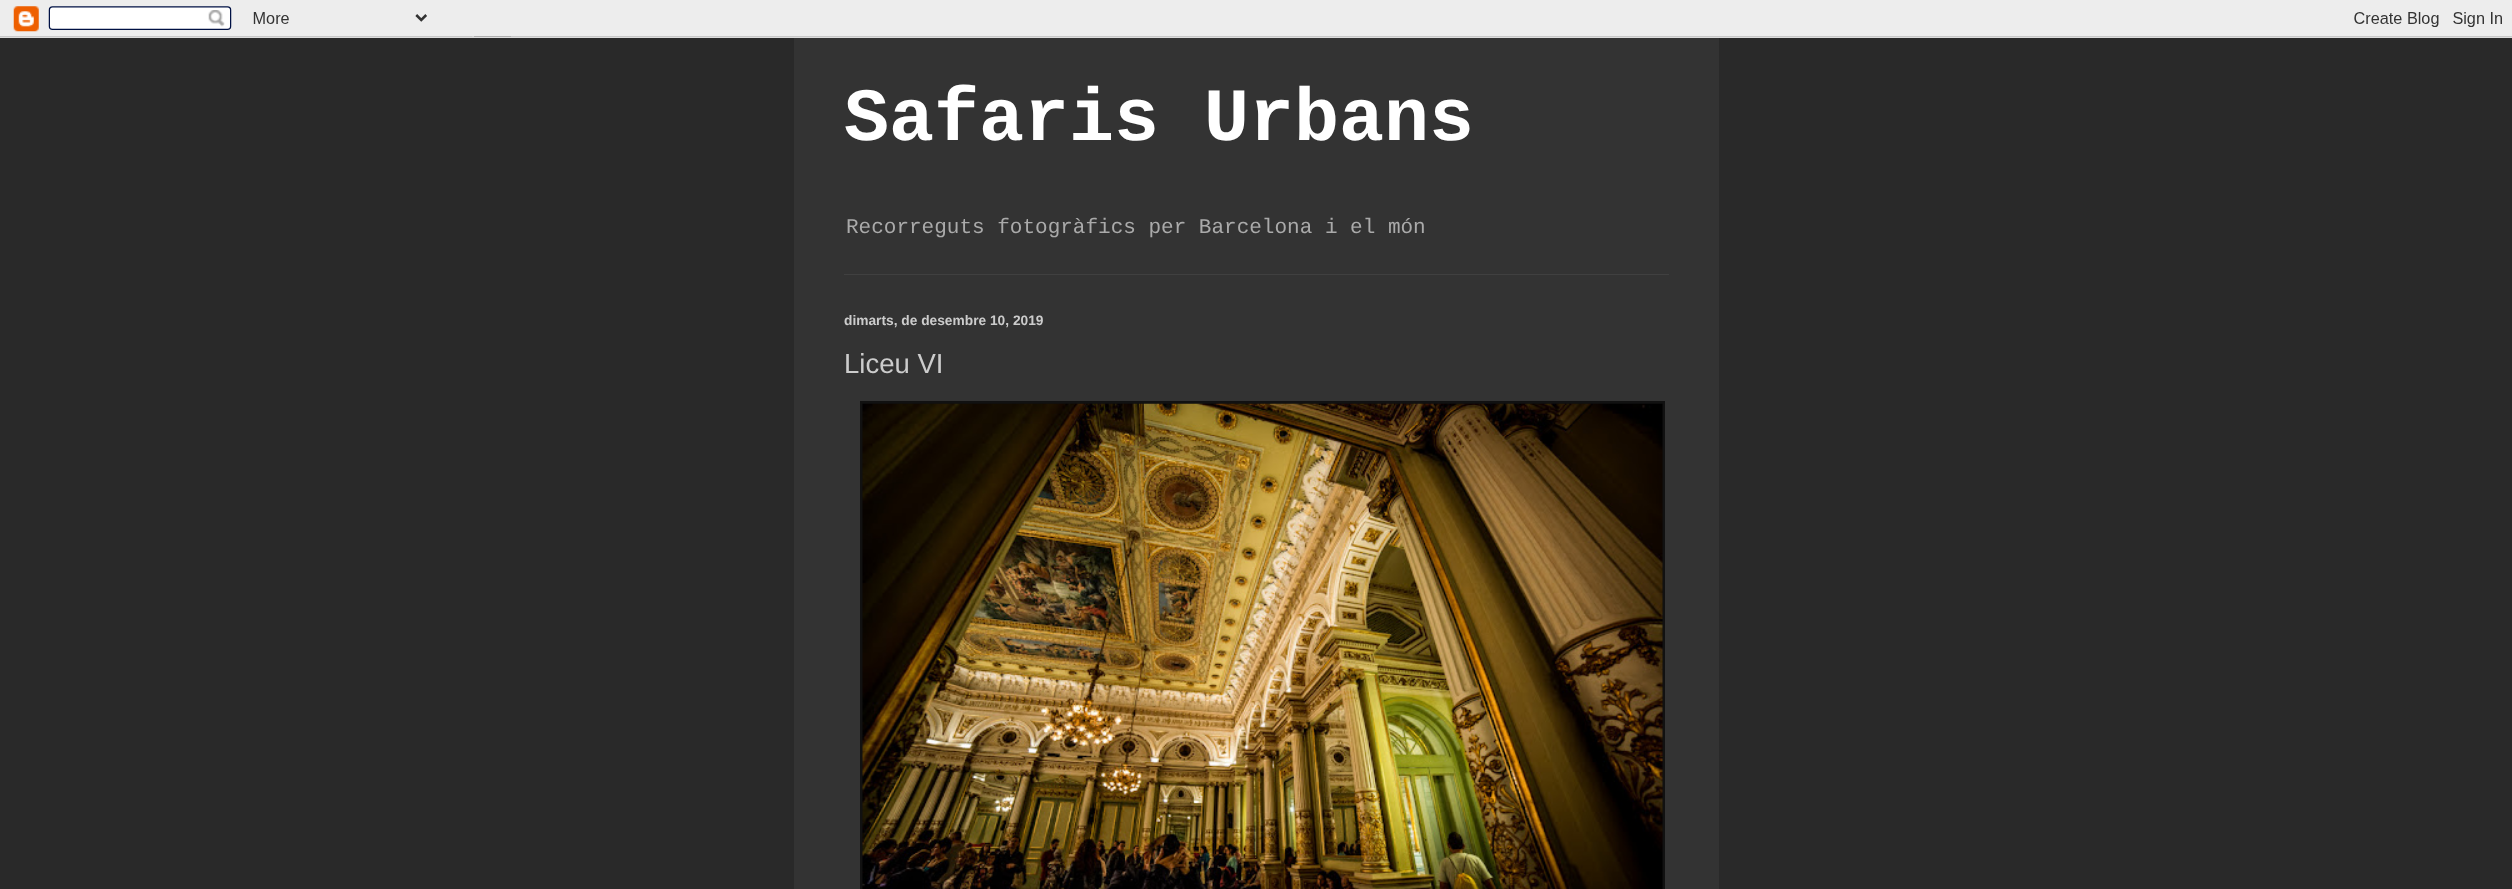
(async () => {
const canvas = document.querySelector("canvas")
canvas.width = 2512
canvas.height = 889
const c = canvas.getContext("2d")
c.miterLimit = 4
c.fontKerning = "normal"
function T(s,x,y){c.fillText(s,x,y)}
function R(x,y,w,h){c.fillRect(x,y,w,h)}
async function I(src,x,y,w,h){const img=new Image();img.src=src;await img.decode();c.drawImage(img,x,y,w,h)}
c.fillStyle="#292929"
R(0,0,2512,889)
await I("1.png",0,0,2512,38)
c.fillStyle="#333"
R(794,38,925,851)
c.font="bold 75px Liberation Mono"
c.fillStyle="#fff"
T("Safaris Urbans",844,140)
c.font="21px Liberation Mono"
c.fillStyle="#aaa"
T("Recorreguts fotogràfics per Barcelona i el món",846,233)
c.fillStyle="#404040"
R(844,274,825,1)
c.font="bold 13.75px Liberation Sans"
c.fillStyle="#ccc"
T("dimarts, de desembre 10, 2019",844,325)
c.font="27.5px Liberation Sans"
T("Liceu VI",844,373)
c.fillStyle="#111"
R(860,401,805,488)
await I("2.png",862,403,801,486)
})()
